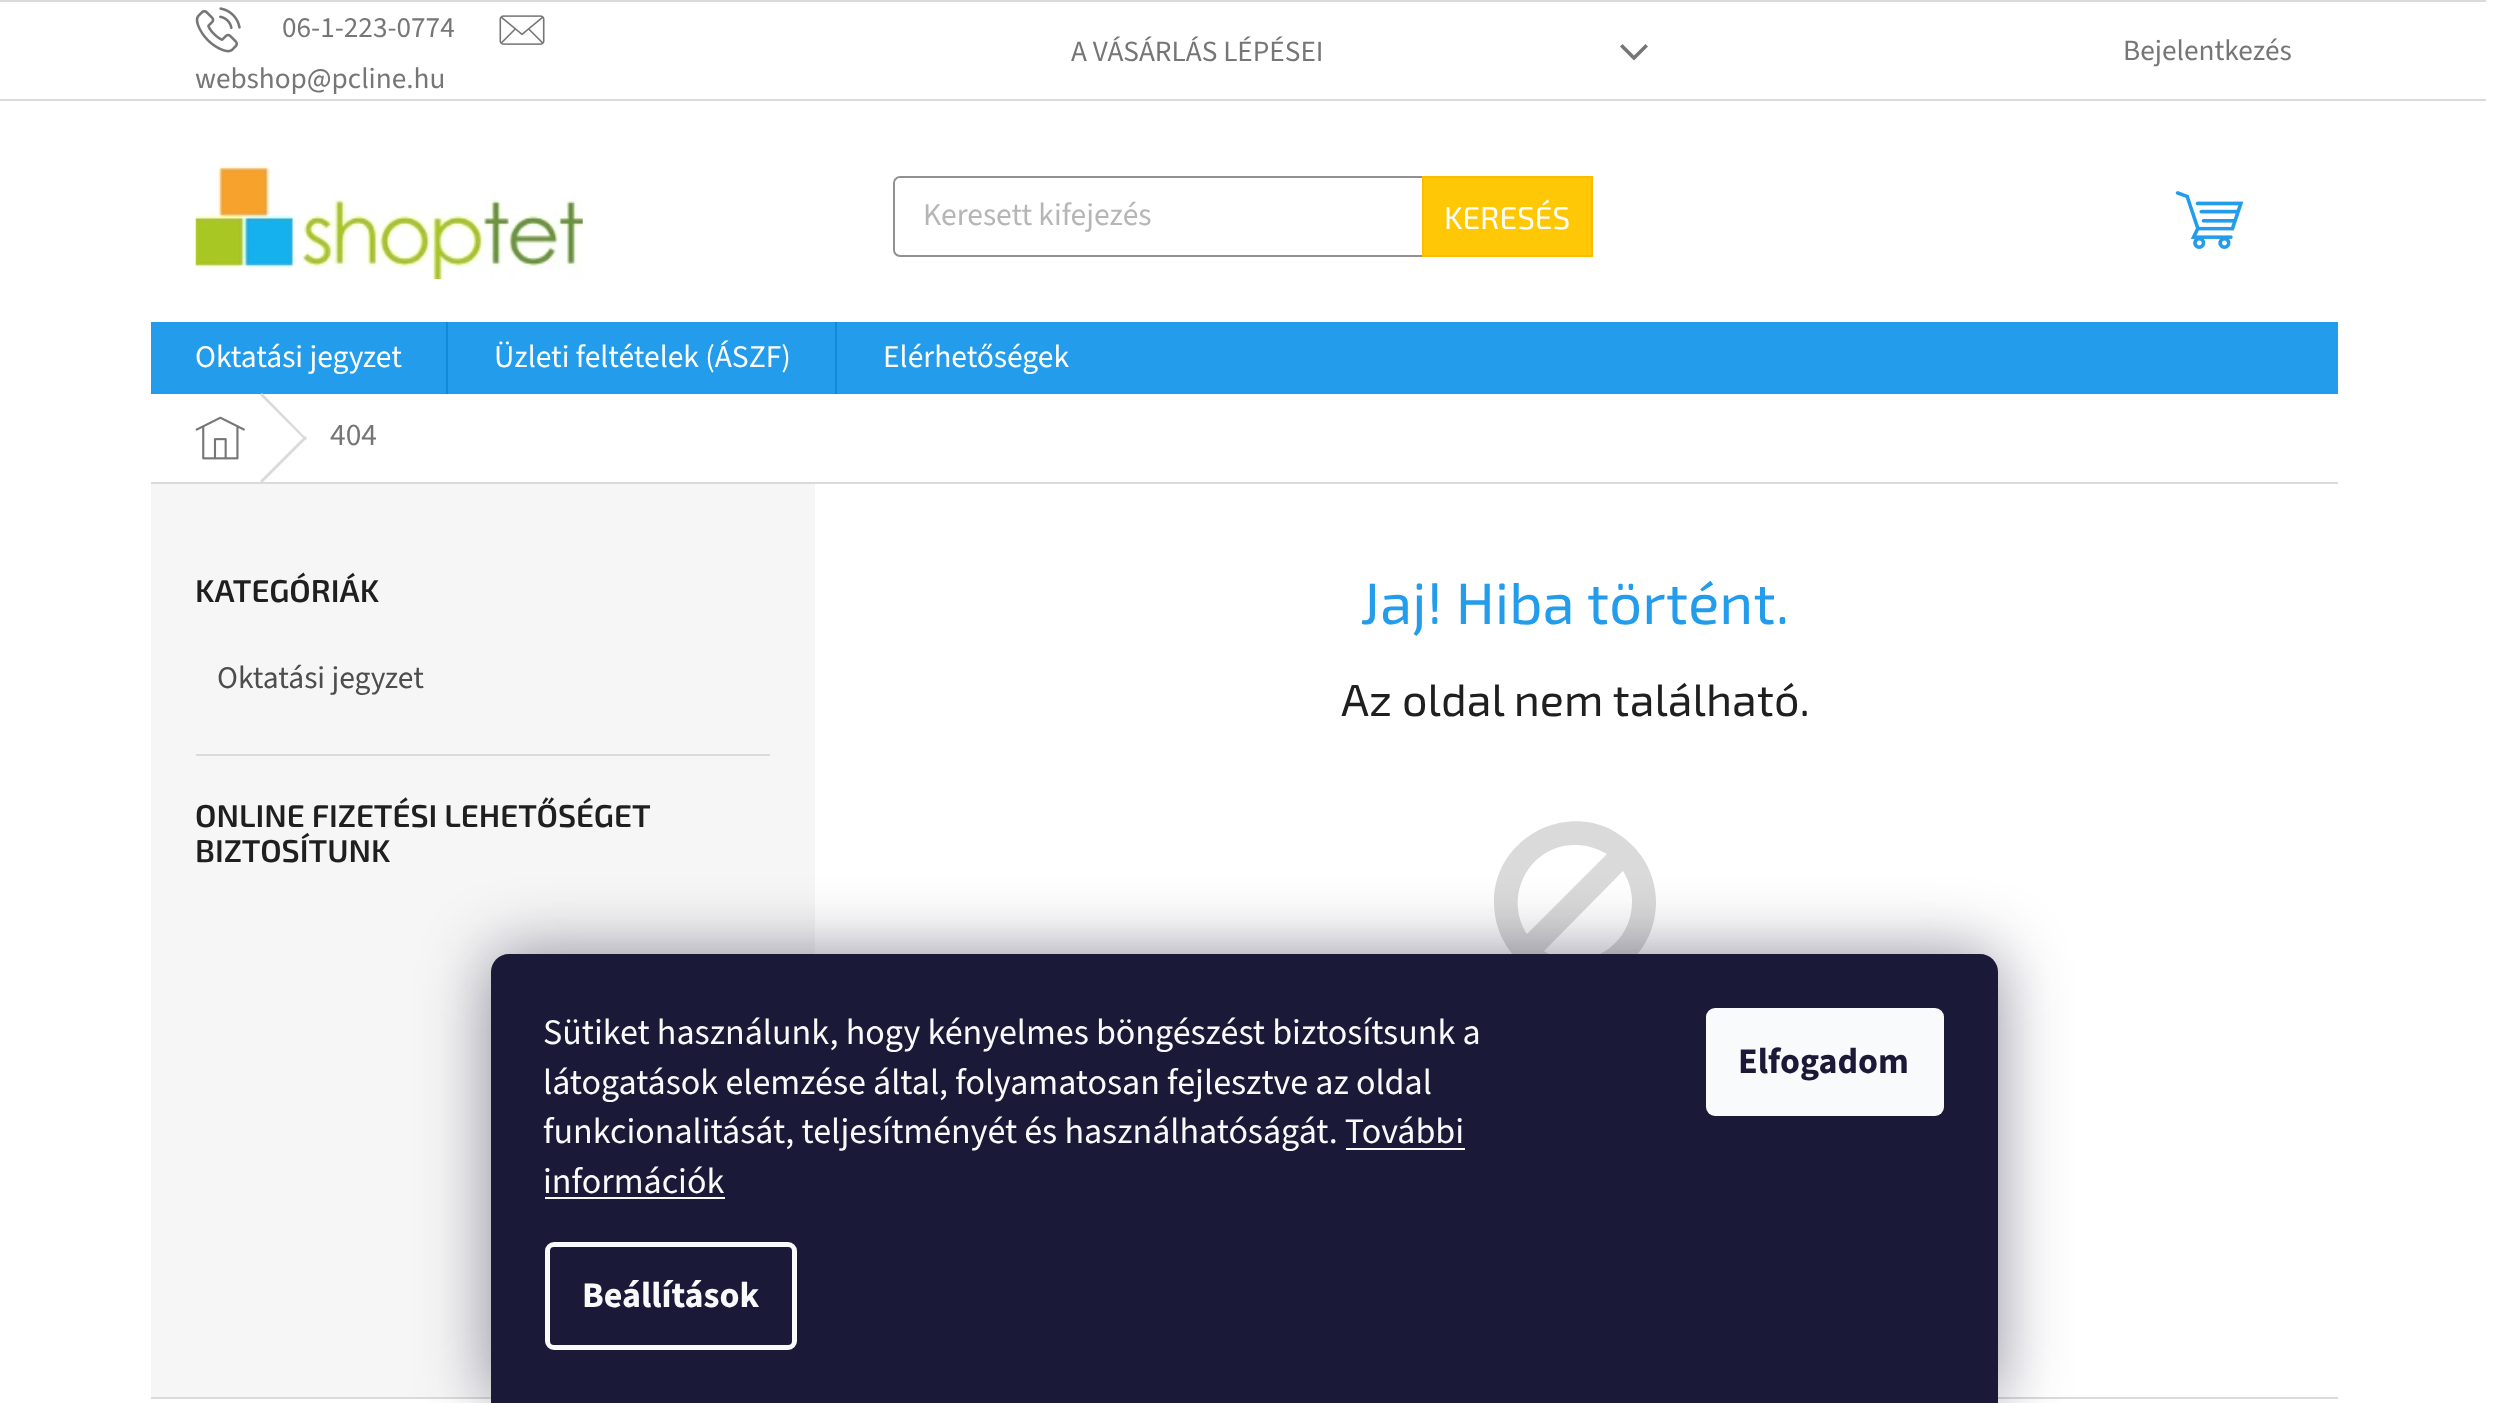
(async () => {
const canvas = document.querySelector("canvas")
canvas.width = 2519
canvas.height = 1403
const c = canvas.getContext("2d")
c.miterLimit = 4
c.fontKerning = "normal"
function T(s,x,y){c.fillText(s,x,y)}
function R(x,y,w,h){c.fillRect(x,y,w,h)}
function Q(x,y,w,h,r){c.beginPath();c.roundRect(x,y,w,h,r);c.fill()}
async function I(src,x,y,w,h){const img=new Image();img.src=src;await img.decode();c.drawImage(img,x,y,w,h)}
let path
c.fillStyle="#fff"
R(0,0,2519,1403)
c.fillStyle="#dadada"
R(0,0,2486,2)
R(0,99,2486,2)
await I("1.png",195,7,46,46)
c.font="29.25px 'Source Sans 3'"
c.fillStyle="#767676"
T("06-1-223-0774",282,37)
await I("2.png",499,15,46,30)
T("webshop@pcline.hu",195,88)
T("A VÁSÁRLÁS LÉPÉSEI",1071,61)
path = new Path2D("M1620 46.5l2.5-2.5l11.5 11.5l11.5-11.5l2.5 2.5l-14 14z")
c.fill(path)
T("Bejelentkezés",2123,60)
await I("3.png",195,166,388,113)
c.beginPath()
c.roundRect(894,177,698,79,6)
c.strokeStyle="#919191"
c.lineWidth=2
c.stroke()
c.font="31.5px 'Source Sans 3'"
c.fillStyle="#b6b6b6"
T("Keresett kifejezés",923,225)
c.fillStyle="#ffc807"
c.beginPath()
c.rect(1423,177,169,79)
c.fill()
c.strokeStyle="#fb0"
c.stroke()
c.font="31.5px 'Exo 2'"
c.fillStyle="#fff"
T("KERESÉS",1444,229)
await I("4.png",2175,191,69,58)
c.fillStyle="#239ceb"
R(151,322,2187,72)
c.font="31.5px 'Source Sans 3'"
c.fillStyle="#fff"
T("Oktatási jegyzet",195,367)
c.fillStyle="#1489d7"
R(446,322,2,72)
c.fillStyle="#fff"
T("Üzleti feltételek (ÁSZF)",494,367)
c.fillStyle="#1489d7"
R(835,322,2,72)
c.fillStyle="#fff"
T("Elérhetőségek",883,367)
c.fillStyle="#dadada"
R(151,482,2187,2)
await I("5.png",195,416,50,44)
path = new Path2D("M260 395l2-2l45 46l-2 1z")
c.fill(path)
path = new Path2D("M305 436l2 2l-45 45l-2-2z")
c.fill(path)
c.fillStyle="#767676"
T("404",330,445)
c.fillStyle="#f6f6f6"
R(151,484,664,913)
c.fillStyle="#dadada"
R(196,754,574,2)
c.font="600 31.5px 'Exo 2'"
c.fillStyle="#1f1f1f"
T("KATEGÓRIÁK",195,602)
c.font="31.5px 'Source Sans 3'"
c.fillStyle="#4d4d4d"
T("Oktatási jegyzet",217,688)
c.font="600 31.5px 'Exo 2'"
c.fillStyle="#1f1f1f"
T("ONLINE FIZETÉSI LEHETŐSÉGET",195,827)
T("BIZTOSÍTUNK",195,862)
c.font="58.5px 'Exo 2'"
c.fillStyle="#239ceb"
T("Jaj! Hiba történt.",1360,624)
c.font="45px 'Exo 2'"
c.fillStyle="#1f1f1f"
T("Az oldal nem található.",1341,716)
c.fillStyle="#dadada"
path = new Path2D("M1632 902c0-11-3-21-9-31l-79 80c38 24 88-3 88-49zm-105 32l80-80c-9-5-19-9-30-9c-46-2-75 50-50 89zm129-32c0 17-5 33-14 46c-8 12-19 22-32 28c-54 26-116-14-116-74c0-59 63-98 116-73c13 7 24 16 32 28c9 13 14 29 14 45z")
c.fill(path)
R(151,1397,2187,2)
c.fillStyle="#1b193980"
c.filter="blur(34px)"
c.beginPath()
c.roundRect(491,954,1507,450,18)
c.fill()
c.filter="none"
c.fillStyle="#1a1937"
path = new Path2D("M509 954h1471c10 0 18 8 18 18v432h-1507v-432c0-10 8-18 18-18z")
c.fill(path)
c.font="36px 'Source Sans 3'"
c.fillStyle="#f8fafb"
T("Sütiket használunk, hogy kényelmes böngészést biztosítsunk a",543,1044)
T("látogatások elemzése által, folyamatosan fejlesztve az oldal",543,1094)
T("funkcionalitását, teljesítményét és használhatóságát. További",543,1143)
T("információk",543,1193)
R(1346,1148,119,2)
R(545,1197,180,2)
c.beginPath()
c.roundRect(547.5,1244.5,247,103,6.5)
c.strokeStyle="#f8fafb"
c.lineWidth=5
c.stroke()
c.font="bold 36px 'Source Sans 3'"
T("Beállítások",582,1307)
Q(1706,1008,238,108,9)
c.fillStyle="#1a1937"
T("Elfogadom",1738,1073)
})()
